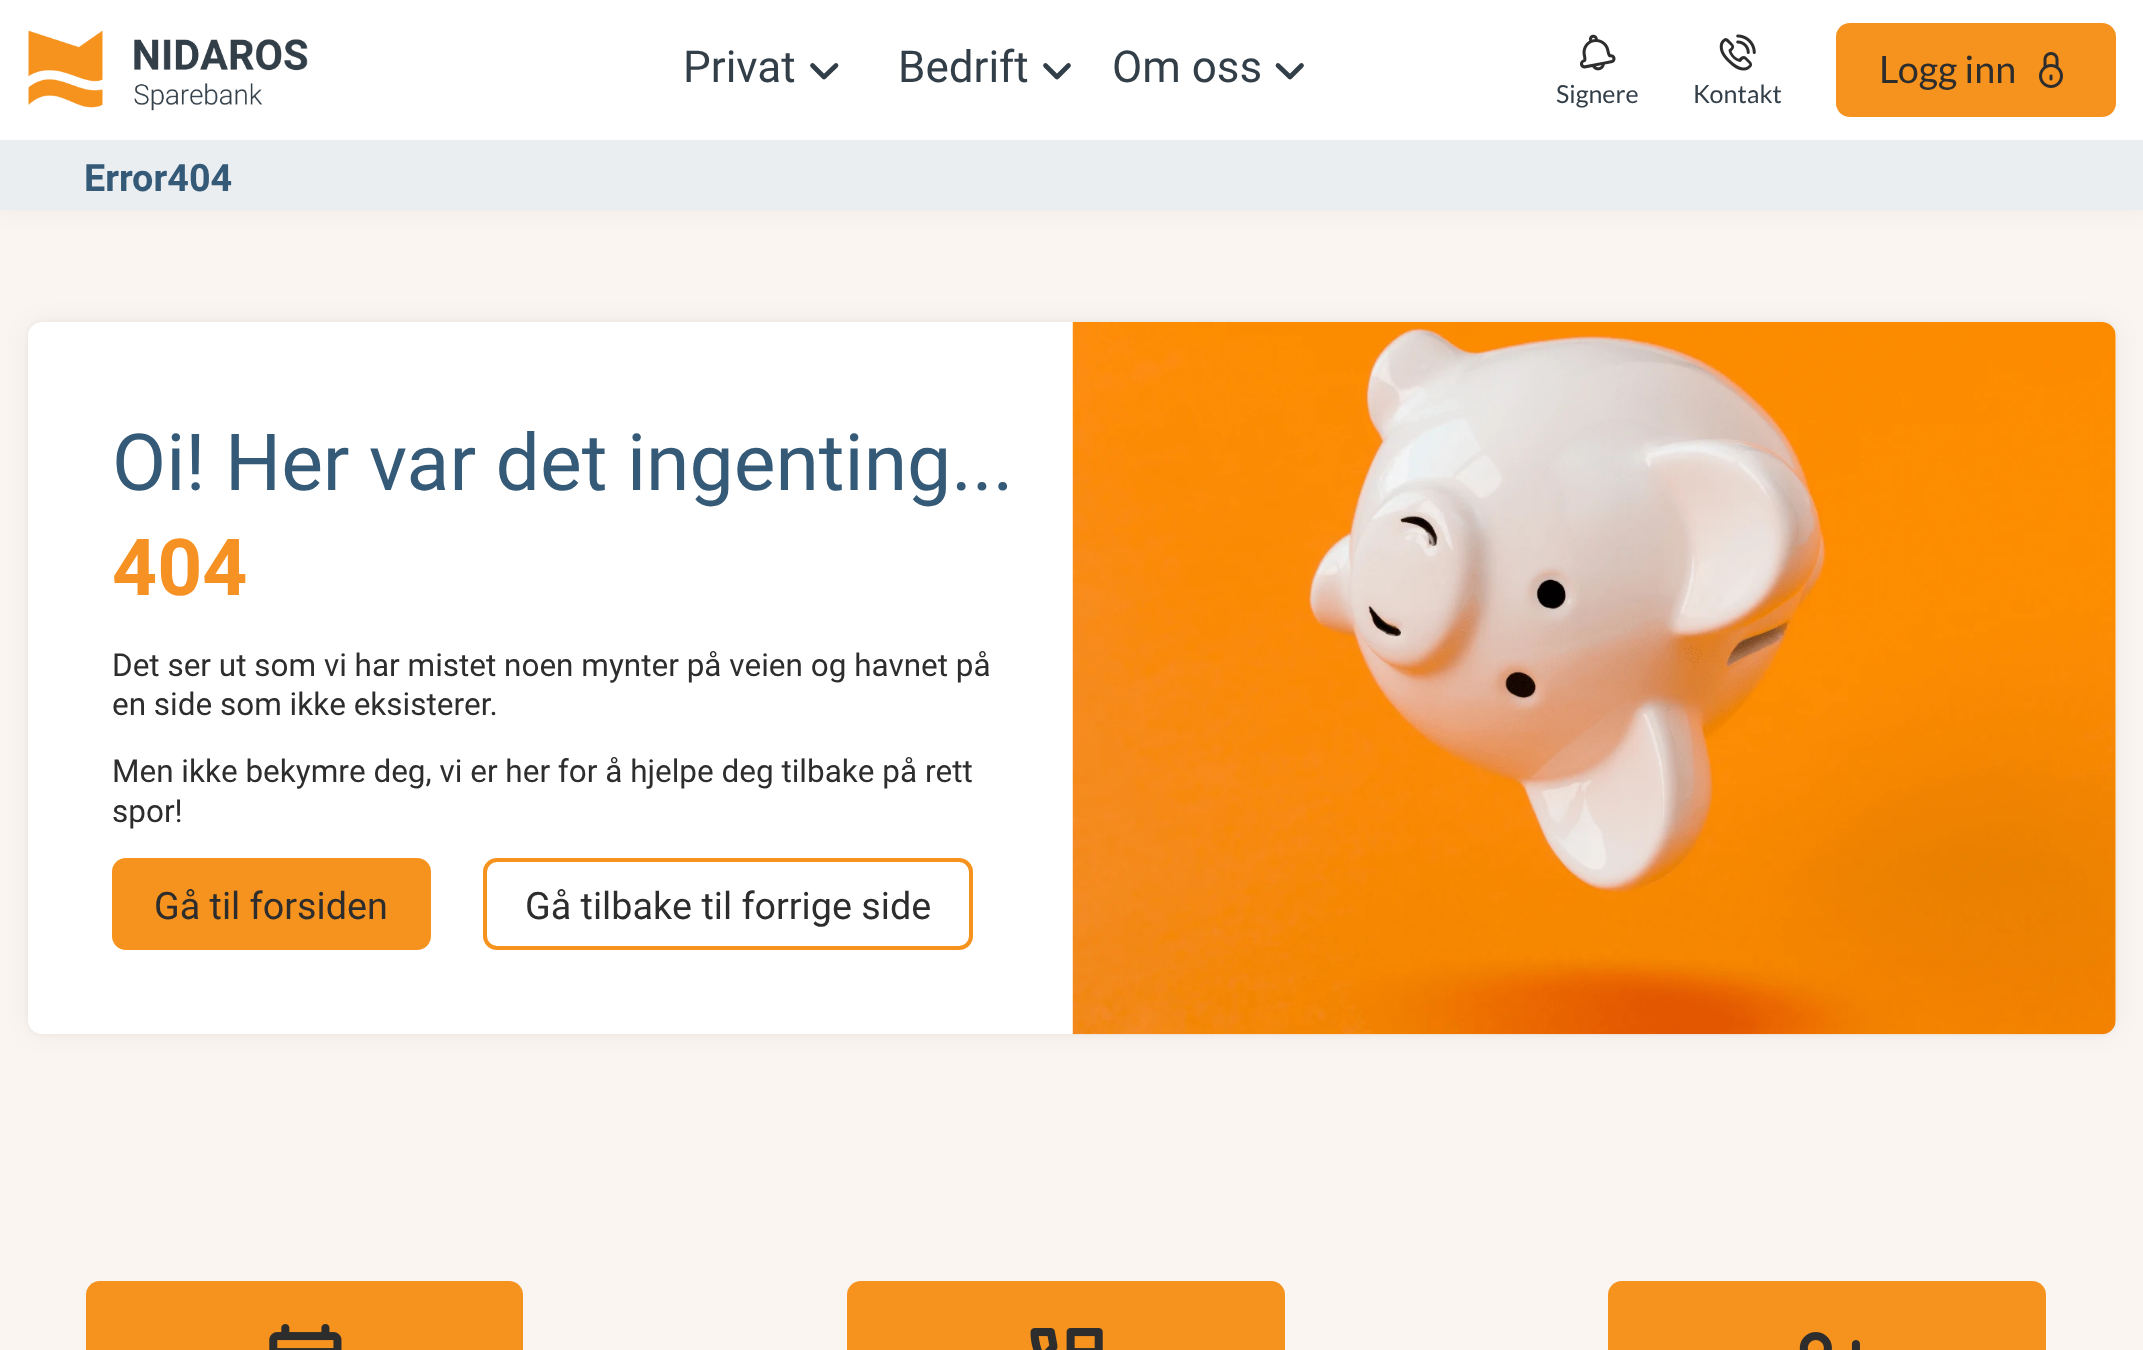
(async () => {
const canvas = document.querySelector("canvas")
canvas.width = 2143
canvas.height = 1350
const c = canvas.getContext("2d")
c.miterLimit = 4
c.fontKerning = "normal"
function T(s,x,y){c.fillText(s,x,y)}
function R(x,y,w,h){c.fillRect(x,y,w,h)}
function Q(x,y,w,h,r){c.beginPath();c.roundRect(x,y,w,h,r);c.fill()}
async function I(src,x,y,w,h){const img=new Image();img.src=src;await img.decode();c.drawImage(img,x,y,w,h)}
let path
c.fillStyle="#faf5f0"
R(0,0,2143,1350)
c.fillStyle="#0000000d"
c.filter="blur(11.5px)"
c.beginPath()
c.rect(0,0,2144,210)
c.fill()
c.filter="none"
c.fillStyle="#fff"
R(0,0,2143,140)
await I("1.png",28,30,280,81)
c.font="44px Roboto"
c.fillStyle="#323e48"
T("Privat",683,82)
path = new Path2D("M812.5 65.5l11.5 11.5l12-11.5")
c.strokeStyle="#323e48"
c.lineWidth=4.7
c.lineCap="round"
c.lineJoin="round"
c.stroke(path)
T("Bedrift",898,82)
path = new Path2D("M1045.5 65.5l11.5 11.5l11.5-11.5")
c.stroke(path)
T("Om oss",1112,82)
path = new Path2D("M1278 65.5l12 11.5l11.5-11.5")
c.stroke(path)
c.fillStyle="#f6921e"
Q(1836,23,280,94,14)
c.font="37.75px Lato"
c.fillStyle="#2d2d2d"
T("Logg inn",1879,83)
await I("2.png",2039,52,24,36)
await I("3.png",1580,34,36,37)
c.font="25px Lato"
c.fillStyle="#323e48"
T("Signere",1556,103)
await I("4.png",1719,34,37,37)
T("Kontakt",1693,103)
c.fillStyle="#eaeef1"
R(0,140,2143,70)
c.font="bold 37.75px Roboto"
c.fillStyle="#345a78"
T("Error404",84,191)
c.fillStyle="#0000000d"
c.filter="blur(2px)"
c.beginPath()
c.roundRect(28,322,2088,712,14)
c.fill()
c.filter="none"
c.filter="blur(11.5px)"
c.beginPath()
c.roundRect(28,322,2088,712,14)
c.fill()
c.filter="none"
c.fillStyle="#fff"
Q(28,322,2088,712,14)
c.font="78.75px Roboto"
c.fillStyle="#345a78"
T("Oi! Her var det ingenting...",112,490)
c.font="bold 78.75px Roboto"
c.fillStyle="#f69223"
T("404",112,595)
c.font="31.5px Roboto"
c.fillStyle="#2d2d2d"
T("Det ser ut som vi har mistet noen mynter på veien og havnet på",112,676)
T("en side som ikke eksisterer.",112,715)
T("Men ikke bekymre deg, vi er her for å hjelpe deg tilbake på rett",112,782)
T("spor!",112,822)
c.fillStyle="#f6921e"
Q(112,858,319,92,14)
c.font="37.75px Roboto"
c.fillStyle="#2d2d2d"
T("Gå til forsiden",154,919)
c.beginPath()
c.roundRect(485,860,486,88,12)
c.strokeStyle="#f6921e"
c.lineWidth=4
c.lineJoin="miter"
c.stroke()
T("Gå tilbake til forrige side",525,919)
await I("5.png",1072,322,1044,713)
c.fillStyle="#f6921e"
Q(86,1281,437,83,14)
await I("6.png",269,1324,73,26)
Q(847,1281,438,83,14)
await I("7.png",1030,1328,73,22)
Q(1608,1281,438,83,14)
await I("8.png",1799,1332,61,18)
})()
